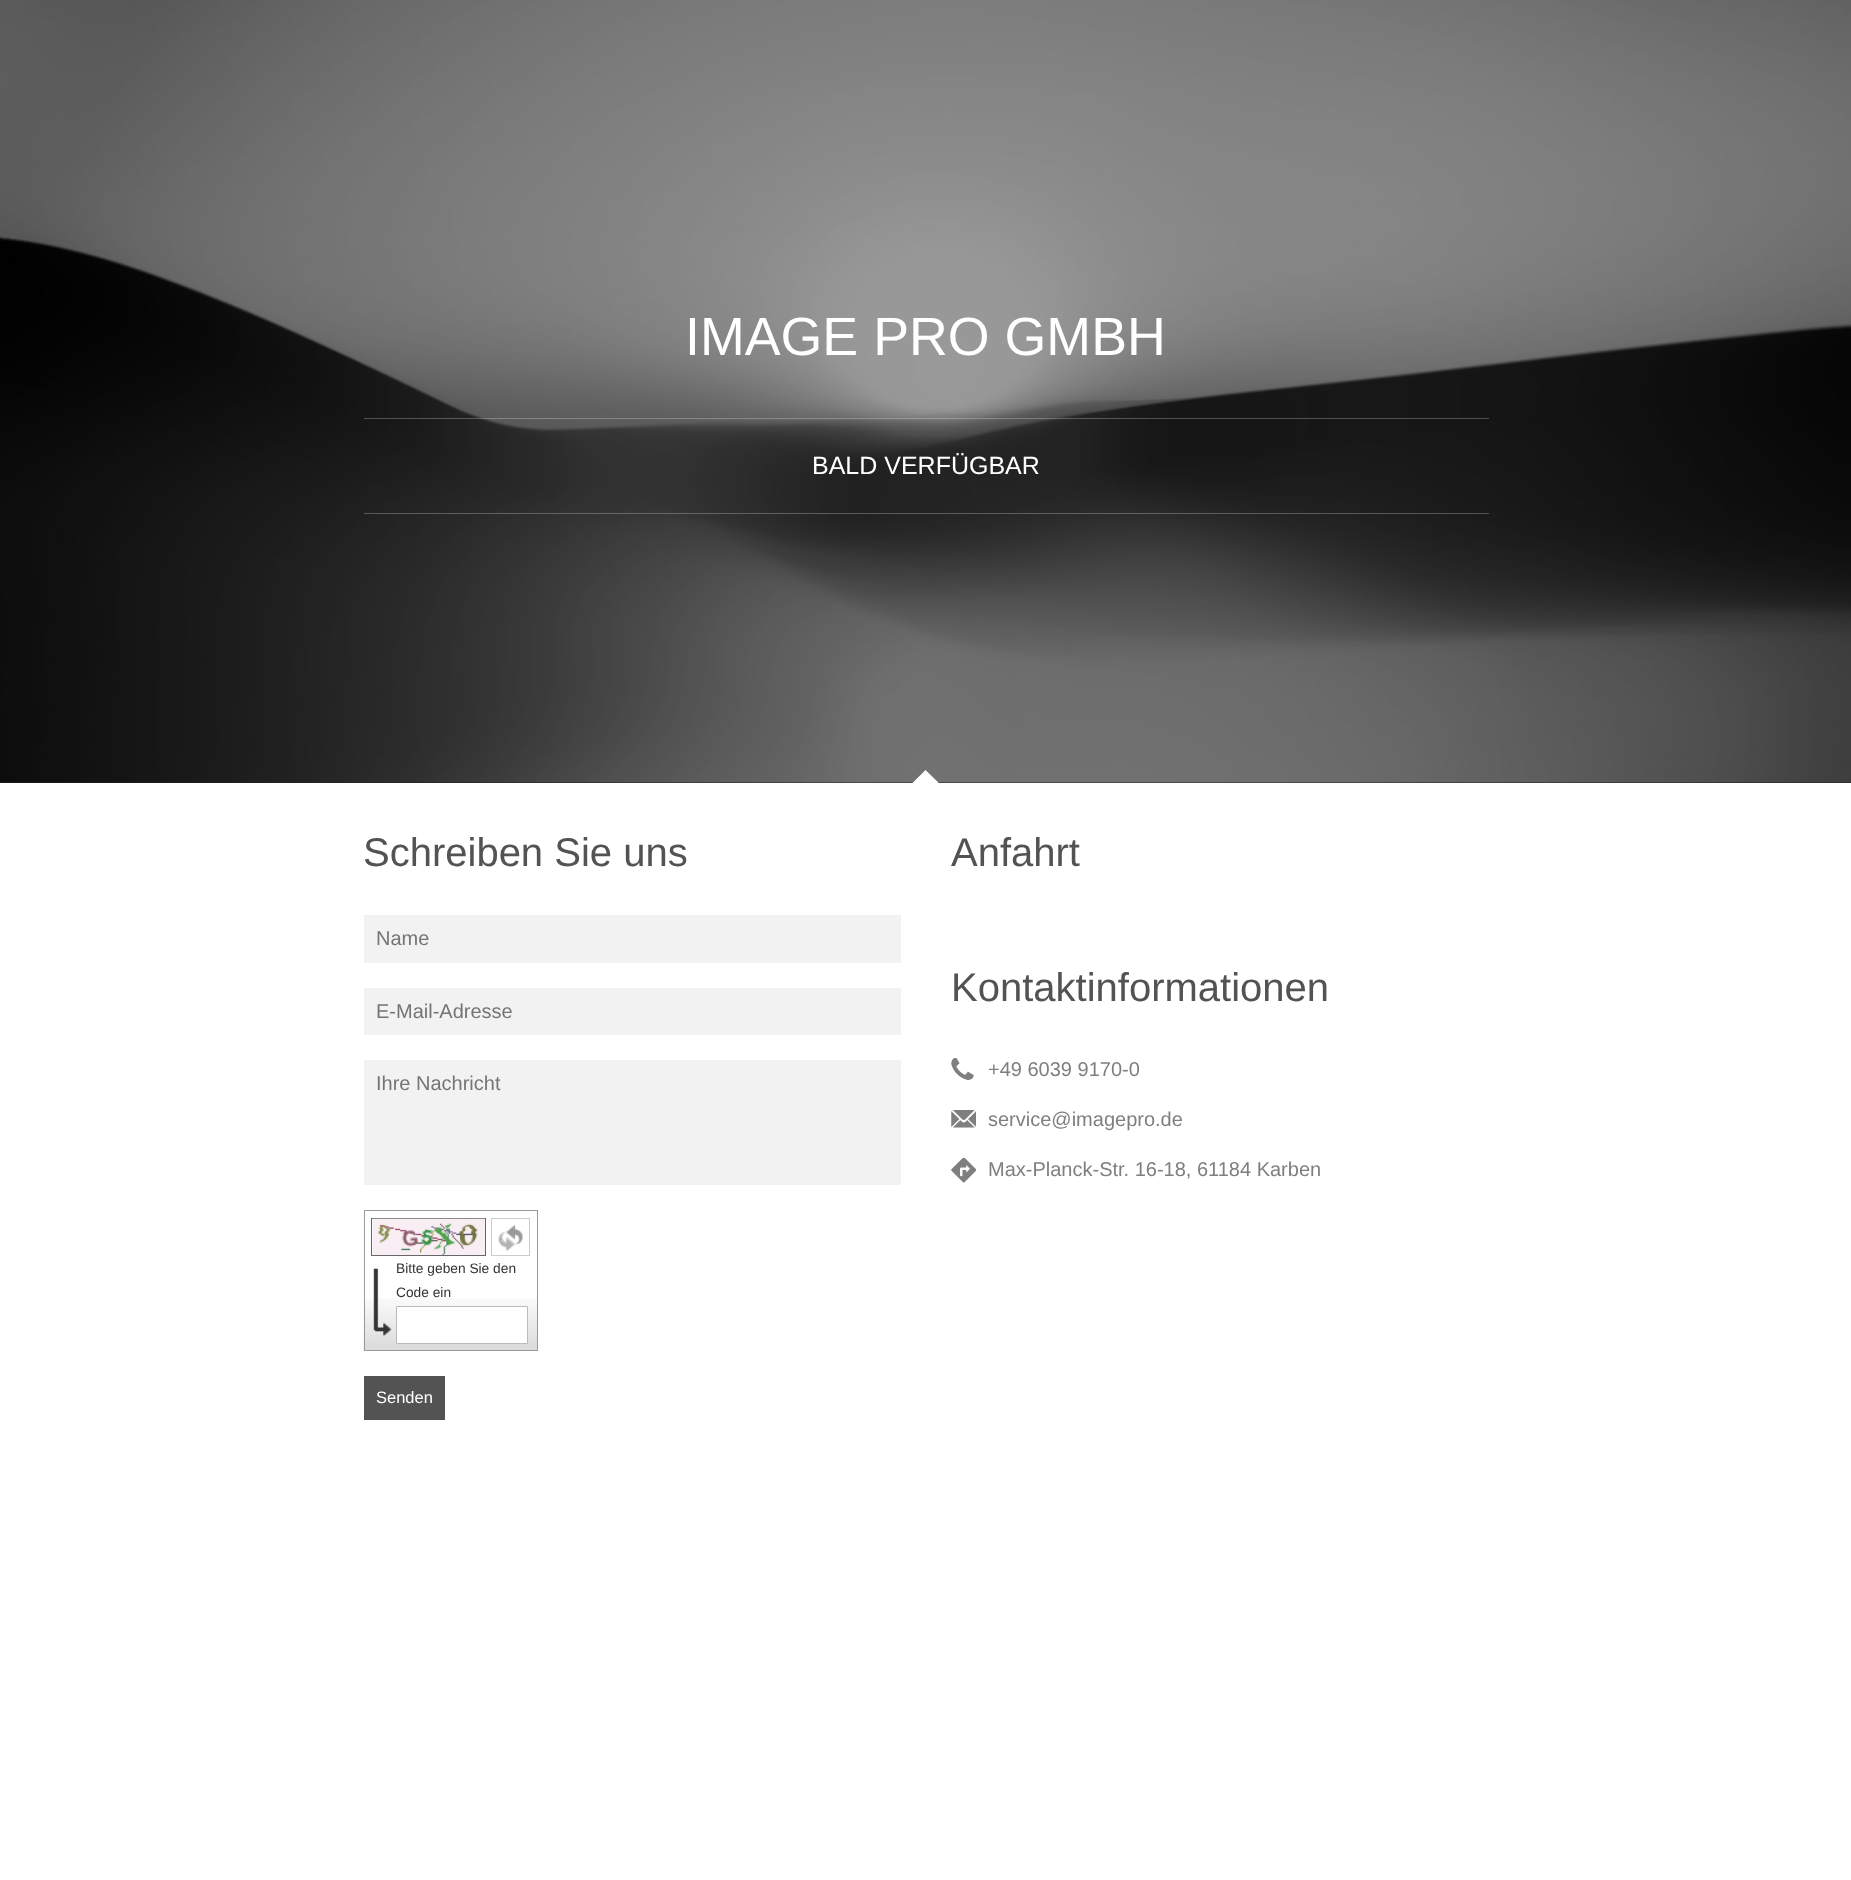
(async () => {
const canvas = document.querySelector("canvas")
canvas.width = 1851
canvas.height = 1880
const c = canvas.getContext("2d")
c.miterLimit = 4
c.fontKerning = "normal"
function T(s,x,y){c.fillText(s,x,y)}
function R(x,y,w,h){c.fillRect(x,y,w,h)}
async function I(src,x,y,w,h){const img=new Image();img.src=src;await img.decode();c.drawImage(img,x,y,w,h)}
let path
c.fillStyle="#fff"
R(0,0,1851,1880)
c.fillStyle="#232323"
R(0,782,1851,1)
await I("1.png",0,0,1851,783)
c.font="53.75px Liberation Sans"
c.fillStyle="#fff"
T("IMAGE PRO GMBH",685,355)
c.fillStyle="#ffffff40"
R(364,418,1125,1)
R(364,513,1125,1)
c.font="25px Liberation Sans"
c.fillStyle="#fff"
T("BALD VERFÜGBAR",812,474)
path = new Path2D("M925.5 770l18 17.5l-18 18l-17.5-18z")
c.fill(path)
c.font="40px Liberation Sans"
c.fillStyle="#535353"
T("Schreiben Sie uns",363,866)
c.fillStyle="#f2f2f2"
R(364,915,537,48)
c.font="20px Liberation Sans"
c.fillStyle="#757575"
T("Name",376,945)
c.fillStyle="#f2f2f2"
R(364,988,537,47)
c.fillStyle="#757575"
T("E-Mail-Adresse",376,1018)
c.fillStyle="#f2f2f2"
R(364,1060,537,125)
c.fillStyle="#757575"
T("Ihre Nachricht",376,1090)
await I("2.png",363,1298,174,52)
c.strokeStyle="#999"
c.strokeRect(364.5,1210.5,173,140)
c.strokeStyle="#666"
c.strokeRect(371.5,1218.5,114,37)
await I("3.png",372,1218,113,37)
await I("4.png",498,1225,25,27)
c.strokeStyle="#ccc"
c.strokeRect(491.5,1218.5,38,37)
await I("5.png",373,1268,19,69)
c.font="13.75px Liberation Sans"
c.fillStyle="#333"
T("Bitte geben Sie den",396,1273)
T("Code ein",396,1297)
c.fillStyle="#fff"
c.beginPath()
c.rect(396.5,1306.5,131,37)
c.fill()
c.strokeStyle="#bbb"
c.stroke()
c.fillStyle="#535353"
R(364,1376,81,44)
c.font="16.5px Liberation Sans"
c.fillStyle="#fff"
T("Senden",376,1403)
c.font="40px Liberation Sans"
c.fillStyle="#535353"
T("Anfahrt",951,866)
T("Kontaktinformationen",951,1001)
await I("6.png",951,1058,23,22)
c.font="20px Liberation Sans"
c.fillStyle="#7f7f7f"
T("+49 6039 9170-0",988,1076)
await I("7.png",951,1110,25,18)
T("service@imagepro.de",988,1126)
await I("8.png",951,1158,25,25)
T("Max-Planck-Str. 16-18, 61184 Karben",988,1176)
})()
